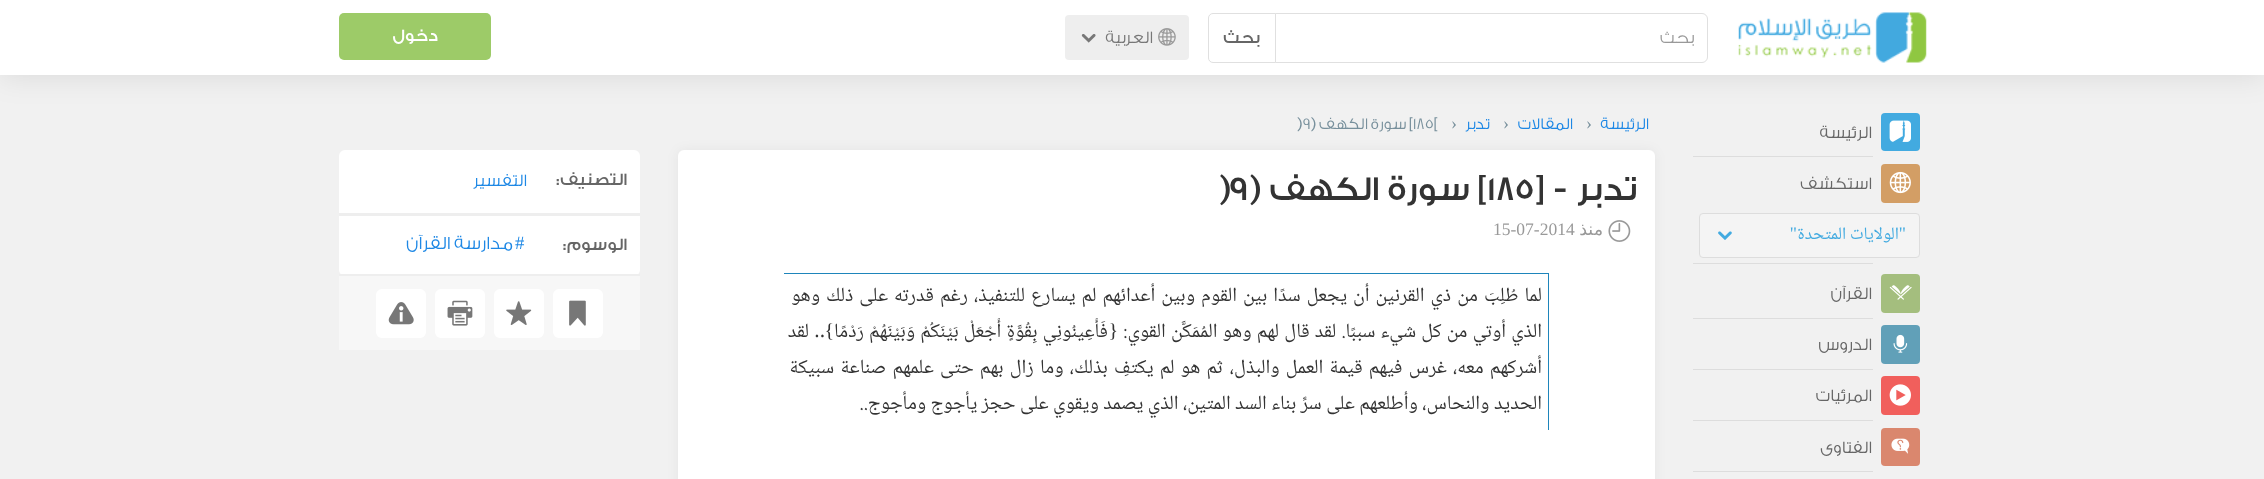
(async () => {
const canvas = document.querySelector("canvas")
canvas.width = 2264
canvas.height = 479
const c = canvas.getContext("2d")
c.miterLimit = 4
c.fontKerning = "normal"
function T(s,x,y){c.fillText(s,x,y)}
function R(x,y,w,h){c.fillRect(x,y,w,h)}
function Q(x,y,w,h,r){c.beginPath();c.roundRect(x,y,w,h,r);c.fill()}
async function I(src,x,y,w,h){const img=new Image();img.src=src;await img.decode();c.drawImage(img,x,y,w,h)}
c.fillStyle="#f1f1f1"
R(0,0,2264,479)
c.fillStyle="#42aae0"
Q(1881,113,39,38,4)
await I("4.png",1889,120,22,22)
c.fillStyle="#0000001a"
c.filter="blur(15.5px)"
c.beginPath()
c.rect(0,0,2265,75)
c.fill()
c.filter="none"
c.fillStyle="#fff"
R(0,0,2264,75)
await I("1.png",1738,12,189,51)
c.beginPath()
c.roundRect(1208.5,13.5,67,49,[4.5,0,0,4.5])
c.strokeStyle="#e0e0e0"
c.stroke()
c.beginPath()
c.roundRect(1275.5,13.5,432,49,[0,5.5,5.5,0])
c.fill()
c.stroke()
c.direction="rtl"
c.font="300 17.5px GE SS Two"
c.fillStyle="#999"
T("بحث",1694,43)
c.font="500 17.5px GE SS Two"
c.fillStyle="#666"
T("بحث",1260,43)
c.fillStyle="#eee"
Q(1065,15,124,45,4)
await I("2.png",1158,28,18,18)
c.font="300 17.5px GE SS Two"
c.fillStyle="#777"
T("العربية",1153,43)
await I("3.png",1081,34,15,9)
c.fillStyle="#9dcb68"
Q(339,13,152,47,5)
c.font="500 17.5px GE SS Two"
c.fillStyle="#fff"
T("دخول",438,41)
c.font="300 17.5px GE SS Two"
c.fillStyle="#666"
T("الرئيسة",1872,138)
c.fillStyle="#ddd"
R(1693,156,180,1)
c.fillStyle="#d39e65"
Q(1881,164,39,39,4)
await I("5.png",1889,171,22,23)
c.fillStyle="#666"
T("استكشف",1872,189)
c.fillStyle="#f4f4f4"
c.beginPath()
c.roundRect(1699.5,213.5,220,44,3.5)
c.fill()
c.strokeStyle="#ddd"
c.stroke()
c.font="17.5px Liberation Serif"
c.fillStyle="#42aae0"
T("\"",1906,239)
c.font="17.5px Noto Naskh Arabic"
T("الولايات المتحدة",1899,239)
c.font="17.5px Liberation Serif"
T("\"",1797,239)
await I("6.png",1718,231,14,9)
c.fillStyle="#ddd"
R(1693,263,180,1)
c.fillStyle="#a4be7e"
Q(1881,274,39,39,4)
await I("7.png",1889,285,23,15)
c.font="300 17.5px GE SS Two"
c.fillStyle="#666"
T("القرآن",1872,299)
c.fillStyle="#ddd"
R(1693,318,180,1)
c.fillStyle="#61a0b8"
Q(1881,325,39,39,4)
await I("8.png",1893,334,15,19)
c.fillStyle="#666"
T("الدروس",1872,350)
c.fillStyle="#ddd"
R(1693,369,180,1)
c.fillStyle="#f15f5c"
Q(1881,376,39,39,4)
await I("9.png",1889,384,22,22)
c.fillStyle="#666"
T("المرئيات",1872,401)
c.fillStyle="#ddd"
R(1693,420,180,1)
c.fillStyle="#da876e"
Q(1881,428,39,38,4)
await I("10.png",1891,438,19,16)
c.fillStyle="#666"
T("الفتاوى",1872,453)
c.fillStyle="#ddd"
R(1693,471,180,1)
c.font="300 16.25px GE SS Two"
c.fillStyle="#1e88e5"
T("الرئيسة",1649,129)
c.direction="ltr"
c.font="18px Liberation Serif"
c.fillStyle="#78909c"
T("›",1586,129)
c.direction="rtl"
c.font="300 16.25px GE SS Two"
c.fillStyle="#1e88e5"
T("المقالات",1573,129)
c.direction="ltr"
c.font="18px Liberation Serif"
c.fillStyle="#78909c"
T("›",1503,129)
c.direction="rtl"
c.font="300 16.25px GE SS Two"
c.fillStyle="#1e88e5"
T("تدبر",1490,129)
c.direction="ltr"
c.font="18px Liberation Serif"
c.fillStyle="#78909c"
T("›",1451,129)
c.font="300 16.25px GE SS Two"
T("185[",1413,129)
c.direction="rtl"
T("] سورة الكهف (",1413,129)
c.direction="ltr"
T(")9",1297,129)
c.fillStyle="#0000000d"
c.filter="blur(6px)"
c.beginPath()
c.roundRect(678,150,977,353,6)
c.fill()
c.filter="none"
c.fillStyle="#fff"
Q(678,150,977,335,6)
c.direction="rtl"
c.font="500 35px GE SS Two"
c.fillStyle="#333"
T("تدبر - [",1637,200)
c.direction="ltr"
T("185",1487,200)
c.direction="rtl"
T("] سورة الكهف (",1487,200)
c.direction="ltr"
T("9",1229,200)
T(")",1218,200)
await I("11.png",1608,220,23,22)
c.direction="rtl"
c.font="17.5px DejaVu Sans"
c.fillStyle="#999"
T("منذ",1603,235)
c.direction="ltr"
c.font="17.5px Liberation Serif"
T("15-07-2014",1493,235)
c.fillStyle="#1e85bb"
R(784,273,765,1)
R(1548,273,1,157)
c.wordSpacing="1.6px"
c.direction="rtl"
c.font="20px Noto Naskh Arabic"
c.fillStyle="#333"
T("لما طُلِبَ من ذي القرنين أن يجعل سدًا بين القوم وبين أعدائهم لم يسارع للتنفيذ، رغم قدرته على ذلك وهو",1542,301)
c.wordSpacing="0.75px"
T("الذي أوتي من كل شيء سببًا. لقد قال لهم وهو المُمَكَّن القوي:",1542,337)
c.wordSpacing="0px"
c.font="20px Liberation Serif"
T("{",1118,337)
c.wordSpacing="0.75px"
c.font="20px Noto Naskh Arabic"
T("فَأَعِينُونِي بِقُوَّةٍ أَجْعَلْ بَيْنَكُمْ وَبَيْنَهُمْ رَدْمًا",1108,337)
c.wordSpacing="0px"
c.font="20px Liberation Serif"
T("}",834,337)
c.wordSpacing="0.75px"
c.font="20px Noto Naskh Arabic"
T(".. لقد",825,337)
c.wordSpacing="1.75px"
T("أشركهم معه، غرس فيهم قيمة العمل والبذل، ثم هو لم يكتفِ بذلك، وما زال بهم حتى علمهم صناعة سبيكة",1542,373)
c.wordSpacing="0px"
T("الحديد والنحاس، وأطلعهم على سرِّ بناء السد المتين، الذي يصمد ويقوي على حجز يأجوج ومأجوج..",1542,409)
c.fillStyle="#fff"
Q(339,150,301,126,6)
c.fillStyle="#eee"
R(339,213,301,3)
c.font="500 17.5px GE SS Two"
c.fillStyle="#666"
T("التصنيف:",627,185)
c.font="300 17.5px GE SS Two"
c.fillStyle="#1e88e5"
T("التفسير",527,186)
c.fillStyle="#eee"
R(339,274,301,2)
c.font="500 17.5px GE SS Two"
c.fillStyle="#666"
T("الوسوم:",627,250)
c.direction="ltr"
c.font="18.75px Liberation Serif"
c.fillStyle="#1e88e5"
T("#",515,249)
c.direction="rtl"
c.font="300 18.75px GE SS Two"
T("مدارسة القرآن",513,249)
c.fillStyle="#f7f7f7"
R(339,276,301,74)
c.fillStyle="#fff"
Q(553,289,50,49,6)
await I("12.png",569,300,17,26)
Q(494,289,50,49,6)
await I("13.png",506,301,26,24)
Q(435,289,50,49,6)
await I("14.png",447,300,26,26)
Q(376,289,50,49,6)
await I("15.png",388,302,26,23)
})()
